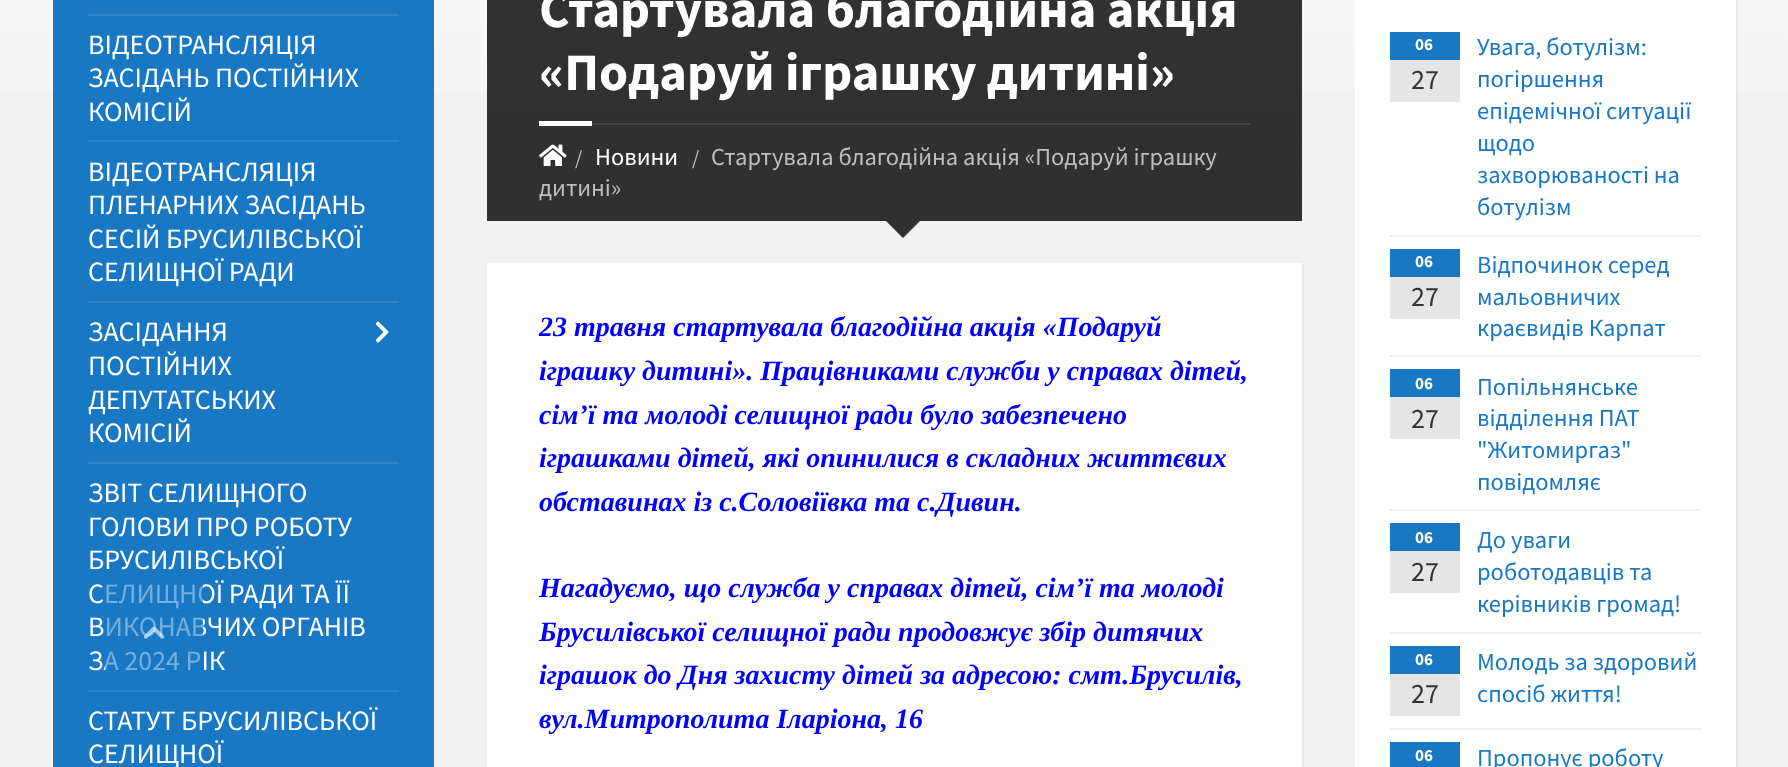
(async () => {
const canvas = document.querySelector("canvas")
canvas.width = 1788
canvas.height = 767
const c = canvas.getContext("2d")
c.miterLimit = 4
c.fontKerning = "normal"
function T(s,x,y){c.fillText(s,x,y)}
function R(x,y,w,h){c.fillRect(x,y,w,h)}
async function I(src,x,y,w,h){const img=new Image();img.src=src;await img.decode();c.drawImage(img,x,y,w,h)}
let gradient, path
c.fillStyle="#f2f2f2"
R(0,0,1788,767)
c.fillStyle="#303030"
R(487,194,815,27)
gradient = c.createLinearGradient(894,-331,894,194)
gradient.addColorStop(0,"#fff")
gradient.addColorStop(1,"#f2f2f2")
c.fillStyle = gradient
R(0,0,1788,93)
gradient = c.createLinearGradient(894,-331,894,194)
gradient.addColorStop(0,"#333")
gradient.addColorStop(1,"#303030")
c.fillStyle = gradient
R(487,0,815,194)
c.fillStyle="#1978c4"
R(53,0,381,767)
c.fillStyle="#3086ca"
R(88,14,311,2)
c.font="28px Source Sans Pro"
c.fillStyle="#fff"
T("ВІДЕОТРАНСЛЯЦІЯ",88,54)
T("ЗАСІДАНЬ ПОСТІЙНИХ",88,87)
T("КОМІСІЙ",88,121)
c.fillStyle="#3086ca"
R(88,140,311,2)
c.fillStyle="#fff"
T("ВІДЕОТРАНСЛЯЦІЯ",88,181)
T("ПЛЕНАРНИХ ЗАСІДАНЬ",88,214)
T("СЕСІЙ БРУСИЛІВСЬКОЇ",88,248)
T("СЕЛИЩНОЇ РАДИ",88,281)
c.fillStyle="#3086ca"
R(88,301,311,2)
c.fillStyle="#fff"
T("ЗАСІДАННЯ",88,341)
await I("1.png",375,321,14,22)
T("ПОСТІЙНИХ",88,375)
T("ДЕПУТАТСЬКИХ",88,409)
T("КОМІСІЙ",88,442)
c.fillStyle="#3086ca"
R(88,462,311,2)
c.fillStyle="#fff"
T("ЗВІТ СЕЛИЩНОГО",88,502)
T("ГОЛОВИ ПРО РОБОТУ",88,536)
T("БРУСИЛІВСЬКОЇ",88,569)
T("СЕЛИЩНОЇ РАДИ ТА ЇЇ",88,603)
T("ВИКОНАВЧИХ ОРГАНІВ",88,636)
T("ЗА 2024 РІК",88,670)
c.fillStyle="#3086ca"
R(88,690,311,2)
c.fillStyle="#fff"
T("СТАТУТ БРУСИЛІВСЬКОЇ",88,730)
T("СЕЛИЩНОЇ",88,763)
c.fillStyle="#454545"
R(592,123,658,2)
c.font="bold 52.5px Source Sans Pro"
c.fillStyle="#fff"
T("Стартувала благодійна акція",539,27)
T("«Подаруй іграшку дитині»",539,90)
R(539,121,53,5)
await I("2.png",539,144,28,22)
c.font="21px Source Sans Pro"
c.fillStyle="#bebebe"
T("/",575,165)
c.font="24.5px Source Sans Pro"
c.fillStyle="#fff"
T("Новини",595,165)
c.font="21px Source Sans Pro"
c.fillStyle="#bebebe"
T("/",692,165)
c.font="24.5px Source Sans Pro"
T("Стартувала благодійна акція «Подаруй іграшку",711,165)
T("дитині»",539,196)
c.fillStyle="#303030"
path = new Path2D("M885.5 220.5h35l-17.5 17.5z")
c.fill(path)
c.fillStyle="#e6e6e6"
path = new Path2D("M488 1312v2h816v-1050h-2v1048z")
c.fill(path)
c.fillStyle="#fff"
R(487,263,815,504)
c.font="italic bold 28px Liberation Serif"
c.fillStyle="#00f"
T("23 травня стартувала благодійна акція «Подаруй",539,336)
T("іграшку дитині». Працівниками служби у справах дітей,",539,380)
T("сім’ї та молоді селищної ради було забезпечено",539,424)
T("іграшками дітей, які опинилися в складних життєвих",539,467)
T("обставинах із с.Соловіївка та с.Дивин.",539,511)
T("Нагадуємо, що служба у справах дітей, сім’ї та молоді",539,597)
T("Брусилівської селищної ради продовжує збір дитячих",539,641)
T("іграшок до Дня захисту дітей за адресою: смт.Брусилів,",539,684)
T("вул.Митрополита Іларіона, 16",539,728)
c.fillStyle="#0000000d"
path = new Path2D("M1356 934v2h382v-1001h-2v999z")
c.fill(path)
c.fillStyle="#fff"
R(1355,0,381,767)
c.fillStyle="#1978c4"
R(1390,32,70,28)
c.font="bold 17px Source Sans Pro"
c.fillStyle="#fff"
T("06",1415,50)
c.fillStyle="#e5e5e5"
R(1390,60,70,42)
c.font="28px Source Sans Pro"
c.fillStyle="#333"
T("27",1411,89)
c.font="24.5px Source Sans Pro"
c.fillStyle="#1978c4"
T("Увага, ботулізм:",1477,55)
T("погіршення",1477,87)
T("епідемічної ситуації",1477,119)
T("щодо",1477,151)
T("захворюваності на",1477,183)
T("ботулізм",1477,215)
c.fillStyle="#f0f0f0"
R(1390,235,311,2)
c.fillStyle="#1978c4"
R(1390,249,70,28)
c.font="bold 17px Source Sans Pro"
c.fillStyle="#fff"
T("06",1415,267)
c.fillStyle="#e5e5e5"
R(1390,277,70,42)
c.font="28px Source Sans Pro"
c.fillStyle="#333"
T("27",1411,306)
c.font="24.5px Source Sans Pro"
c.fillStyle="#1978c4"
T("Відпочинок серед",1477,273)
T("мальовничих",1477,305)
T("краєвидів Карпат",1477,336)
c.fillStyle="#f0f0f0"
R(1390,355,311,2)
c.fillStyle="#1978c4"
R(1390,369,70,28)
c.font="bold 17px Source Sans Pro"
c.fillStyle="#fff"
T("06",1415,389)
c.fillStyle="#e5e5e5"
R(1390,397,70,42)
c.font="28px Source Sans Pro"
c.fillStyle="#333"
T("27",1411,428)
c.font="24.5px Source Sans Pro"
c.fillStyle="#1978c4"
T("Попільнянське",1477,395)
T("відділення ПАТ",1477,426)
T("\"Житомиргаз\"",1477,458)
T("повідомляє",1477,490)
c.fillStyle="#f0f0f0"
R(1390,509,311,2)
c.fillStyle="#1978c4"
R(1390,523,70,28)
c.font="bold 17px Source Sans Pro"
c.fillStyle="#fff"
T("06",1415,543)
c.fillStyle="#e5e5e5"
R(1390,551,70,42)
c.font="28px Source Sans Pro"
c.fillStyle="#333"
T("27",1411,581)
c.font="24.5px Source Sans Pro"
c.fillStyle="#1978c4"
T("До уваги",1477,548)
T("роботодавців та",1477,580)
T("керівників громад!",1477,612)
c.fillStyle="#f0f0f0"
R(1390,632,311,2)
c.fillStyle="#1978c4"
R(1390,646,70,28)
c.font="bold 17px Source Sans Pro"
c.fillStyle="#fff"
T("06",1415,665)
c.fillStyle="#e5e5e5"
R(1390,674,70,42)
c.font="28px Source Sans Pro"
c.fillStyle="#333"
T("27",1411,703)
c.font="24.5px Source Sans Pro"
c.fillStyle="#1978c4"
T("Молодь за здоровий",1477,670)
T("спосіб життя!",1477,702)
c.fillStyle="#f0f0f0"
R(1390,728,311,2)
c.fillStyle="#1978c4"
R(1390,742,70,25)
c.font="bold 17px Source Sans Pro"
c.fillStyle="#fff"
T("06",1415,761)
c.font="24.5px Source Sans Pro"
c.fillStyle="#1978c4"
T("Пропонує роботу",1477,766)
c.fillStyle="#1978c499"
R(105,584,98,87)
await I("3.png",144,627,21,12)
})()
